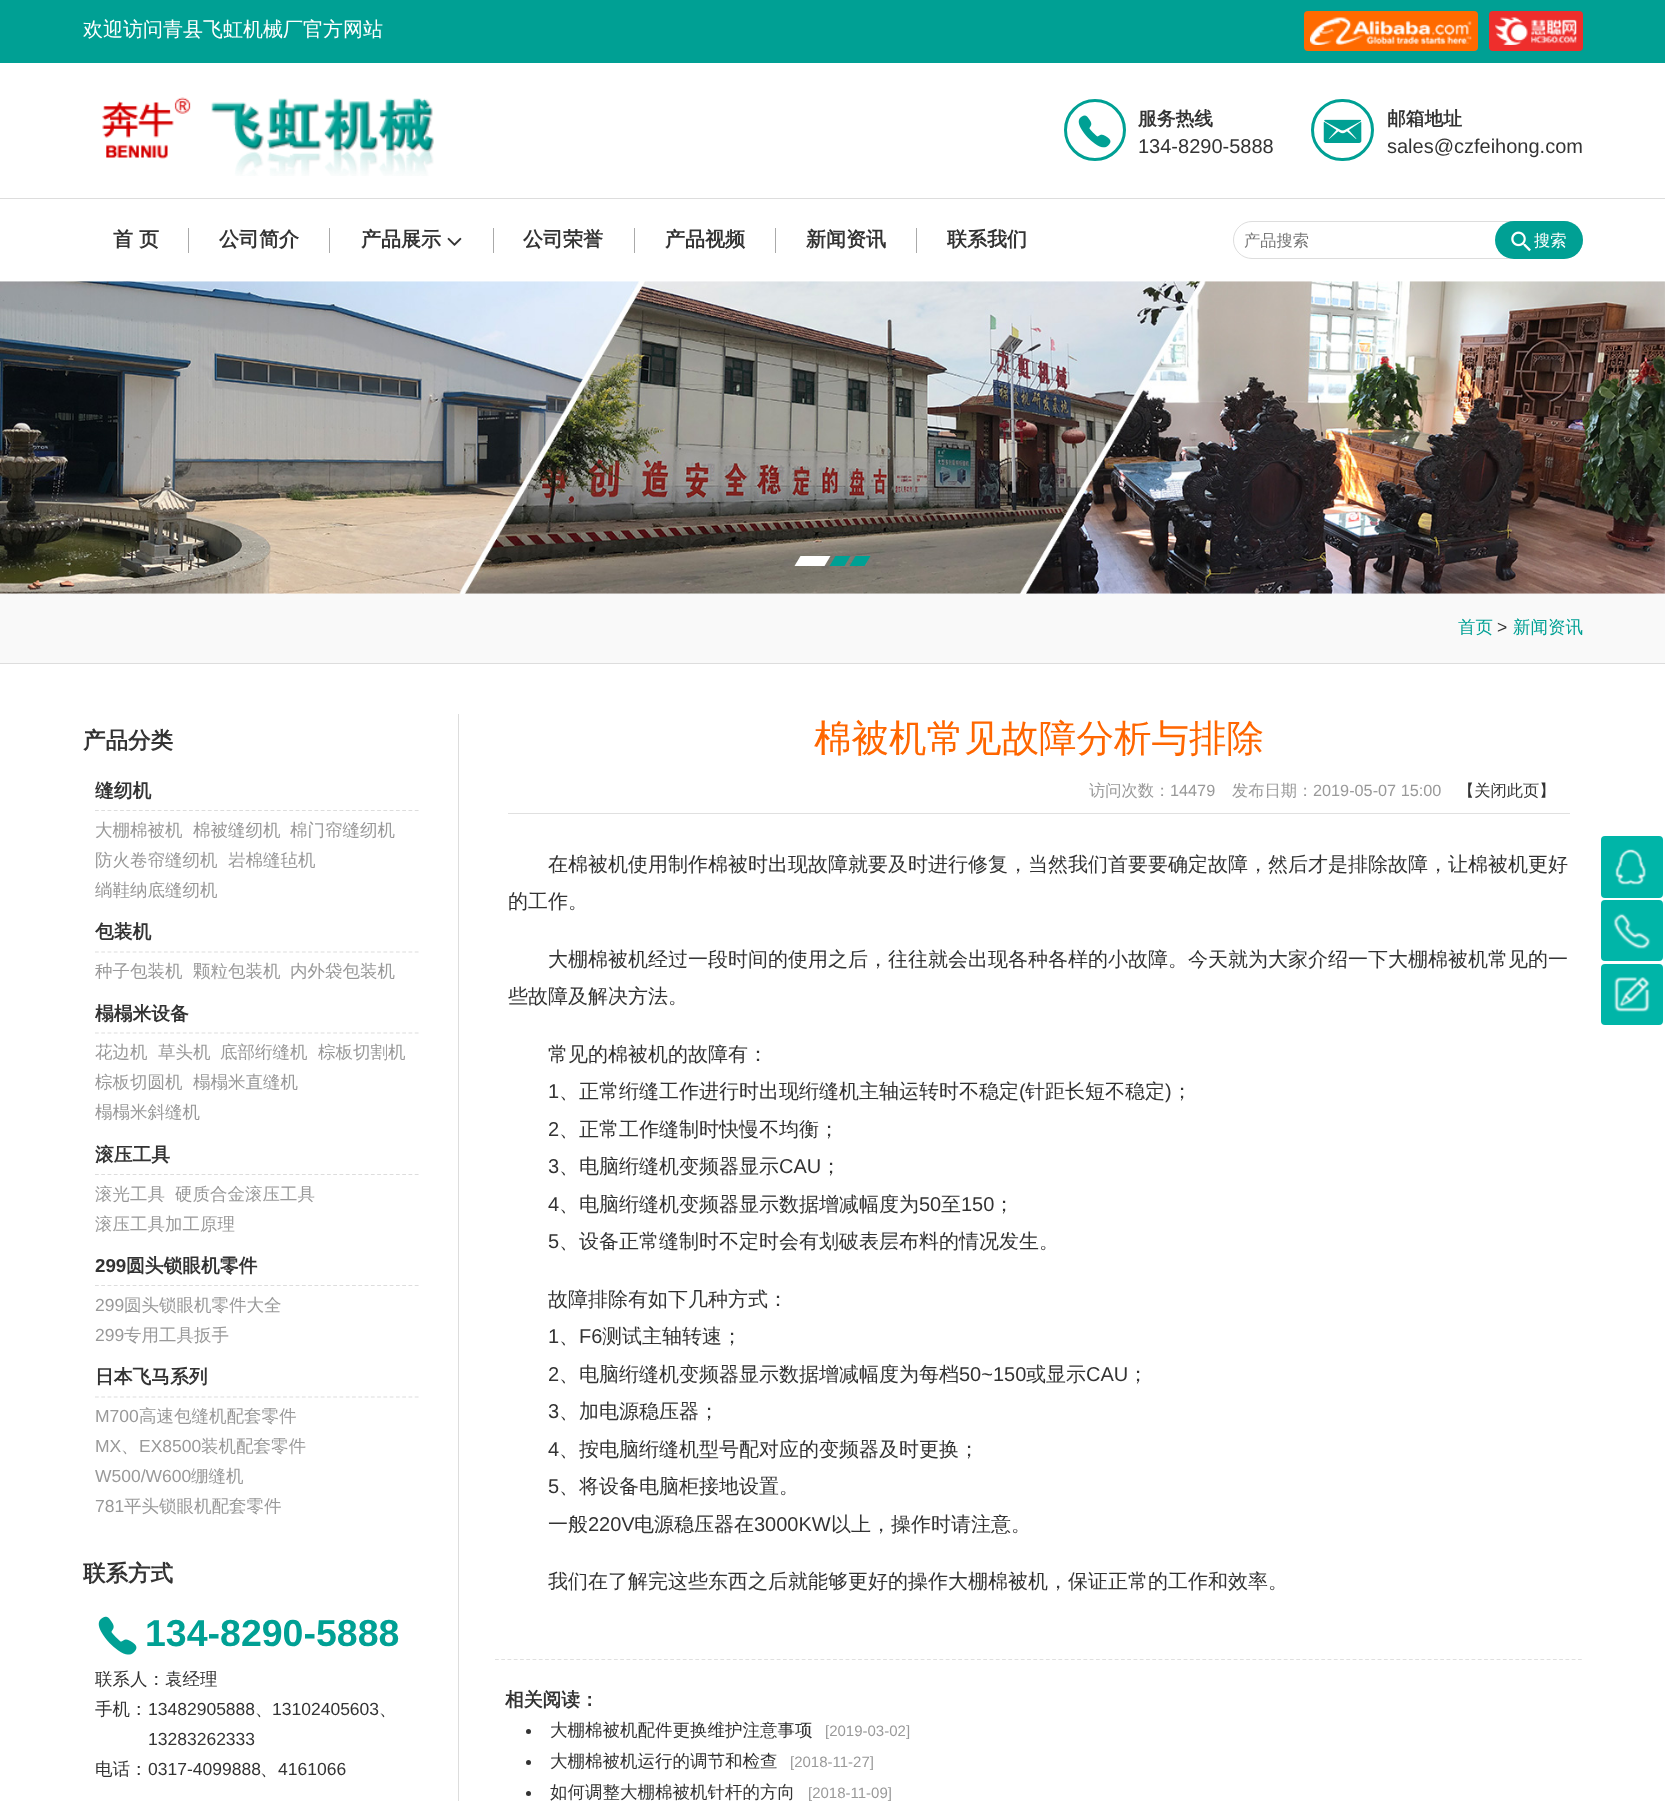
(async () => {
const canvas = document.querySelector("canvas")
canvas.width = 1665
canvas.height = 1801
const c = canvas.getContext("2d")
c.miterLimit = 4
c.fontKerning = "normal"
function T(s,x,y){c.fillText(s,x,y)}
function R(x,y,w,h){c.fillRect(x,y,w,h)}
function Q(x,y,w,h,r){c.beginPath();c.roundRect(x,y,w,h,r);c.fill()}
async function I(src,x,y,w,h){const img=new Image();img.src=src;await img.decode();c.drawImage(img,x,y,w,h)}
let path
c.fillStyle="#fff"
R(0,0,1665,1801)
c.fillStyle="#00a094"
R(0,0,1665,63)
c.font="500 20px WenQuanYi Zen Hei"
c.fillStyle="#fff"
T("欢迎访问青县飞虹机械厂官方网站",83,36)
c.fillStyle="#ff6a00"
Q(1304,11,174,40,4)
await I("1.png",1310,17,162,28)
c.fillStyle="#ee2e2c"
Q(1489,11,94,40,4)
await I("2.png",1495,17,82,28)
await I("3.png",102,97,332,79)
c.beginPath()
c.arc(1095,130,29.5,0,7)
c.strokeStyle="#00a094"
c.lineWidth=3
c.stroke()
await I("4.png",1078,115,33,33)
c.font="bold 18.75px WenQuanYi Zen Hei"
c.fillStyle="#333"
T("服务热线",1138,125)
c.font="20px Liberation Sans"
T("134-8290-5888",1138,153)
c.beginPath()
c.roundRect(1312.5,100.5,60,59,29.5)
c.stroke()
await I("5.png",1323,119,39,24)
c.font="bold 18.75px WenQuanYi Zen Hei"
T("邮箱地址",1387,125)
c.font="20px Liberation Sans"
T("sales@czfeihong.com",1387,153)
c.fillStyle="#ddd"
R(0,198,1665,1)
c.font="bold 20px WenQuanYi Zen Hei"
c.fillStyle="#333"
T("首 页",113,246)
c.fillStyle="#aaa"
R(188,228,1,25)
c.fillStyle="#333"
T("公司简介",219,246)
c.fillStyle="#aaa"
R(329,228,1,25)
c.fillStyle="#333"
T("产品展示",361,246)
await I("6.png",447,237,15,9)
c.fillStyle="#aaa"
R(493,228,1,25)
c.fillStyle="#333"
T("公司荣誉",523,246)
c.fillStyle="#aaa"
R(634,228,1,25)
c.fillStyle="#333"
T("产品视频",665,246)
c.fillStyle="#aaa"
R(775,228,1,25)
c.fillStyle="#333"
T("新闻资讯",806,246)
c.fillStyle="#aaa"
R(916,228,1,25)
c.fillStyle="#333"
T("联系我们",947,246)
c.beginPath()
c.roundRect(1233.5,221.5,349,37,18.5)
c.strokeStyle="#ddd"
c.lineWidth=1
c.stroke()
c.font="500 16.25px WenQuanYi Zen Hei"
c.fillStyle="#757575"
T("产品搜索",1244,246)
c.fillStyle="#00a094"
Q(1495,221,88,38,19)
await I("7.png",1511,231,20,21)
c.fillStyle="#fff"
T("搜索",1534,246)
await I("8.png",0,281,1665,313)
path = new Path2D("M800.5 556h30l-6 10h-30z")
c.fill(path)
c.fillStyle="#00a094"
path = new Path2D("M835.5 556h15l-6 10h-15z")
c.fill(path)
path = new Path2D("M855.5 556h15l-6 10h-15z")
c.fill(path)
c.fillStyle="#f9f9f9"
R(0,594,1665,69)
c.fillStyle="#ddd"
R(0,663,1665,1)
c.font="500 17.5px WenQuanYi Zen Hei"
c.fillStyle="#00a094"
T("首页",1458,633)
c.font="17.5px Liberation Sans"
c.fillStyle="#333"
T(">",1497,633)
c.font="500 17.5px WenQuanYi Zen Hei"
c.fillStyle="#00a094"
T("新闻资讯",1513,633)
c.font="bold 22.5px WenQuanYi Zen Hei"
c.fillStyle="#333"
T("产品分类",83,748)
path = new Path2D("M95 810.5h324")
c.lineWidth=1.2
c.setLineDash([3.75,2.52])
c.stroke(path)
c.font="bold 18.75px WenQuanYi Zen Hei"
T("缝纫机",95,797)
c.font="500 17.5px WenQuanYi Zen Hei"
c.fillStyle="#999"
T("大棚棉被机",95,836)
T("棉被缝纫机",193,836)
T("棉门帘缝纫机",290,836)
T("防火卷帘缝纫机",95,866)
T("岩棉缝毡机",228,866)
T("绱鞋纳底缝纫机",95,896)
path = new Path2D("M95 952h324")
c.stroke(path)
c.font="bold 18.75px WenQuanYi Zen Hei"
c.fillStyle="#333"
T("包装机",95,938)
c.font="500 17.5px WenQuanYi Zen Hei"
c.fillStyle="#999"
T("种子包装机",95,977)
T("颗粒包装机",193,977)
T("内外袋包装机",290,977)
path = new Path2D("M95 1033h324")
c.stroke(path)
c.font="bold 18.75px WenQuanYi Zen Hei"
c.fillStyle="#333"
T("榻榻米设备",95,1020)
c.font="500 17.5px WenQuanYi Zen Hei"
c.fillStyle="#999"
T("花边机",95,1058)
T("草头机",158,1058)
T("底部绗缝机",220,1058)
T("棕板切割机",318,1058)
T("棕板切圆机",95,1088)
T("榻榻米直缝机",193,1088)
T("榻榻米斜缝机",95,1118)
path = new Path2D("M95 1174.5h324")
c.stroke(path)
c.font="bold 18.75px WenQuanYi Zen Hei"
c.fillStyle="#333"
T("滚压工具",95,1161)
c.font="500 17.5px WenQuanYi Zen Hei"
c.fillStyle="#999"
T("滚光工具",95,1200)
T("硬质合金滚压工具",175,1200)
T("滚压工具加工原理",95,1230)
path = new Path2D("M95 1285.5h324")
c.stroke(path)
c.font="bold 18.75px Liberation Sans"
c.fillStyle="#333"
T("299",95,1272)
c.font="bold 18.75px WenQuanYi Zen Hei"
T("圆头锁眼机零件",126,1272)
c.font="17.5px Liberation Sans"
c.fillStyle="#999"
T("299",95,1311)
c.font="500 17.5px WenQuanYi Zen Hei"
T("圆头锁眼机零件大全",124,1311)
c.font="17.5px Liberation Sans"
T("299",95,1341)
c.font="500 17.5px WenQuanYi Zen Hei"
T("专用工具扳手",124,1341)
path = new Path2D("M95 1397h324")
c.stroke(path)
c.font="bold 18.75px WenQuanYi Zen Hei"
c.fillStyle="#333"
T("日本飞马系列",95,1383)
c.font="17.5px Liberation Sans"
c.fillStyle="#999"
T("M700",95,1422)
c.font="500 17.5px WenQuanYi Zen Hei"
T("高速包缝机配套零件",139,1422)
c.font="17.5px Liberation Sans"
T("MX",95,1452)
c.font="500 17.5px WenQuanYi Zen Hei"
T("、",121,1452)
c.font="17.5px Liberation Sans"
T("EX8500",139,1452)
c.font="500 17.5px WenQuanYi Zen Hei"
T("装机配套零件",201,1452)
c.font="17.5px Liberation Sans"
T("W500/W600",95,1482)
c.font="500 17.5px WenQuanYi Zen Hei"
T("绷缝机",191,1482)
c.font="17.5px Liberation Sans"
T("781",95,1512)
c.font="500 17.5px WenQuanYi Zen Hei"
T("平头锁眼机配套零件",124,1512)
c.font="bold 22.5px WenQuanYi Zen Hei"
c.fillStyle="#333"
T("联系方式",83,1581)
await I("9.png",98,1616,39,39)
c.font="bold 37.5px Liberation Sans"
c.fillStyle="#00a094"
T("134-8290-5888",145,1646)
c.font="500 17.5px WenQuanYi Zen Hei"
c.fillStyle="#333"
T("联系人：袁经理",95,1685)
T("手机：",95,1715)
c.font="17.5px Liberation Sans"
T("13482905888",148,1715)
c.font="500 17.5px WenQuanYi Zen Hei"
T("、",255,1715)
c.font="17.5px Liberation Sans"
T("13102405603",272,1715)
c.font="500 17.5px WenQuanYi Zen Hei"
T("、",379,1715)
c.font="17.5px Liberation Sans"
T("13283262333",148,1745)
c.font="500 17.5px WenQuanYi Zen Hei"
T("电话：",95,1775)
c.font="17.5px Liberation Sans"
T("0317-4099888",148,1775)
c.font="500 17.5px WenQuanYi Zen Hei"
T("、",260,1775)
c.font="17.5px Liberation Sans"
T("4161066",278,1775)
c.fillStyle="#ddd"
R(458,714,1,1087)
c.font="500 37.5px WenQuanYi Zen Hei"
c.fillStyle="#f60"
T("棉被机常见故障分析与排除",814,751)
c.fillStyle="#e0e0e0"
R(508,813,1062,1)
c.font="500 16.25px WenQuanYi Zen Hei"
c.fillStyle="#999"
T("访问次数：",1089,796)
c.font="16.25px Liberation Sans"
T("14479",1170,796)
c.font="500 16.25px WenQuanYi Zen Hei"
T("发布日期：",1232,796)
c.font="16.25px Liberation Sans"
T("2019-05-07 15:00",1313,796)
c.font="500 16.25px WenQuanYi Zen Hei"
c.fillStyle="#333"
T("【关闭此页】",1458,796)
c.font="500 20px WenQuanYi Zen Hei"
T("在棉被机使用制作棉被时出现故障就要及时进行修复，当然我们首要要确定故障，然后才是排除故障，让棉被机更好",548,871)
T("的工作。",508,908)
T("大棚棉被机经过一段时间的使用之后，往往就会出现各种各样的小故障。今天就为大家介绍一下大棚棉被机常见的一",548,966)
T("些故障及解决方法。",508,1003)
T("常见的棉被机的故障有：",548,1061)
c.font="20px Liberation Sans"
T("1",548,1098)
c.font="500 20px WenQuanYi Zen Hei"
T("、正常绗缝工作进行时出现绗缝机主轴运转时不稳定",559,1098)
c.font="20px Liberation Sans"
T("(",1019,1098)
c.font="500 20px WenQuanYi Zen Hei"
T("针距长短不稳定",1025,1098)
c.font="20px Liberation Sans"
T(")",1165,1098)
c.font="500 20px WenQuanYi Zen Hei"
T("；",1172,1098)
c.font="20px Liberation Sans"
T("2",548,1136)
c.font="500 20px WenQuanYi Zen Hei"
T("、正常工作缝制时快慢不均衡；",559,1136)
c.font="20px Liberation Sans"
T("3",548,1173)
c.font="500 20px WenQuanYi Zen Hei"
T("、电脑绗缝机变频器显示",559,1173)
c.font="20px Liberation Sans"
T("CAU",779,1173)
c.font="500 20px WenQuanYi Zen Hei"
T("；",821,1173)
c.font="20px Liberation Sans"
T("4",548,1211)
c.font="500 20px WenQuanYi Zen Hei"
T("、电脑绗缝机变频器显示数据增减幅度为",559,1211)
c.font="20px Liberation Sans"
T("50",919,1211)
c.font="500 20px WenQuanYi Zen Hei"
T("至",941,1211)
c.font="20px Liberation Sans"
T("150",961,1211)
c.font="500 20px WenQuanYi Zen Hei"
T("；",994,1211)
c.font="20px Liberation Sans"
T("5",548,1248)
c.font="500 20px WenQuanYi Zen Hei"
T("、设备正常缝制时不定时会有划破表层布料的情况发生。",559,1248)
T("故障排除有如下几种方式：",548,1306)
c.font="20px Liberation Sans"
T("1",548,1343)
c.font="500 20px WenQuanYi Zen Hei"
T("、",559,1343)
c.font="20px Liberation Sans"
T("F6",579,1343)
c.font="500 20px WenQuanYi Zen Hei"
T("测试主轴转速；",602,1343)
c.font="20px Liberation Sans"
T("2",548,1381)
c.font="500 20px WenQuanYi Zen Hei"
T("、电脑绗缝机变频器显示数据增减幅度为每档",559,1381)
c.font="20px Liberation Sans"
T("50~150",959,1381)
c.font="500 20px WenQuanYi Zen Hei"
T("或显示",1026,1381)
c.font="20px Liberation Sans"
T("CAU",1086,1381)
c.font="500 20px WenQuanYi Zen Hei"
T("；",1128,1381)
c.font="20px Liberation Sans"
T("3",548,1418)
c.font="500 20px WenQuanYi Zen Hei"
T("、加电源稳压器；",559,1418)
c.font="20px Liberation Sans"
T("4",548,1456)
c.font="500 20px WenQuanYi Zen Hei"
T("、按电脑绗缝机型号配对应的变频器及时更换；",559,1456)
c.font="20px Liberation Sans"
T("5",548,1493)
c.font="500 20px WenQuanYi Zen Hei"
T("、将设备电脑柜接地设置。",559,1493)
T("一般",548,1531)
c.font="20px Liberation Sans"
T("220V",588,1531)
c.font="500 20px WenQuanYi Zen Hei"
T("电源稳压器在",634,1531)
c.font="20px Liberation Sans"
T("3000KW",754,1531)
c.font="500 20px WenQuanYi Zen Hei"
T("以上，操作时请注意。",831,1531)
T("我们在了解完这些东西之后就能够更好的操作大棚棉被机，保证正常的工作和效率。",548,1588)
path = new Path2D("M495 1659.5h1087.5")
c.strokeStyle="#e0e0e0"
c.setLineDash([3.75,2.51])
c.stroke(path)
c.font="bold 18.75px WenQuanYi Zen Hei"
T("相关阅读：",505,1706)
c.beginPath()
c.arc(528.5,1731.5,2.5,0,7)
c.fill()
c.font="500 17.5px WenQuanYi Zen Hei"
T("大棚棉被机配件更换维护注意事项",550,1736)
c.font="15px Liberation Sans"
c.fillStyle="#999"
T("[2019-03-02]",825,1736)
c.fillStyle="#333"
c.beginPath()
c.arc(528.5,1762.5,2.5,0,7)
c.fill()
c.font="500 17.5px WenQuanYi Zen Hei"
T("大棚棉被机运行的调节和检查",550,1767)
c.font="15px Liberation Sans"
c.fillStyle="#999"
T("[2018-11-27]",790,1767)
c.fillStyle="#333"
c.beginPath()
c.arc(528.5,1793.5,2.5,0,7)
c.fill()
c.font="500 17.5px WenQuanYi Zen Hei"
T("如何调整大棚棉被机针杆的方向",550,1798)
c.font="15px Liberation Sans"
c.fillStyle="#999"
T("[2018-11-09]",808,1798)
c.fillStyle="#00b5a8"
Q(1601,836,62,62,4)
await I("10.png",1615,849,31,36)
Q(1601,900,62,61,4)
await I("11.png",1613,913,38,36)
Q(1601,964,62,61,4)
await I("12.png",1614,977,36,35)
})()
